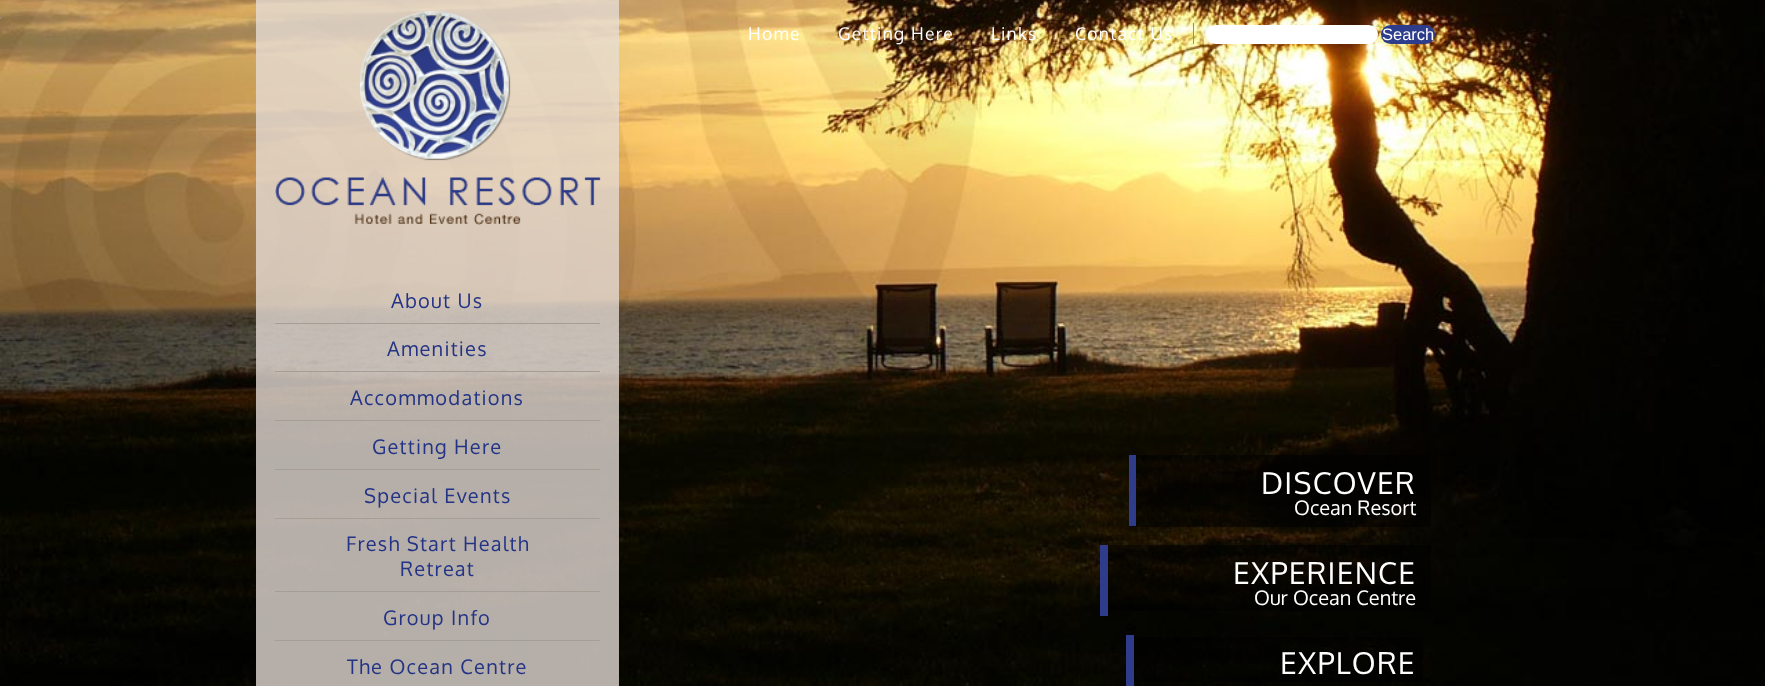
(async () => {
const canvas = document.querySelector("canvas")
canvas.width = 1765
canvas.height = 686
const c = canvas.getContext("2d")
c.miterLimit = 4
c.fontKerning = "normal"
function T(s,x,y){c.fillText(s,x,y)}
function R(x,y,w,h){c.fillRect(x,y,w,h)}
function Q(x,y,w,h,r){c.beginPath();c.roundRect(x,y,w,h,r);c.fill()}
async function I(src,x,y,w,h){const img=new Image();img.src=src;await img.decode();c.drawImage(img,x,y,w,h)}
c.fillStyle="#fff"
R(0,0,1765,686)
await I("1.png",0,0,1765,686)
await I("2.png",0,17,2,2)
c.letterSpacing="1.25px"
c.font="17.5px Oxygen"
T("Home",748,40)
T("Getting Here",838,40)
T("Links",991,40)
T("Contact Us",1075,40)
c.fillStyle="#a08a80"
R(1193,23,1,21)
c.fillStyle="#fff"
Q(1206,25,172,19,9.5)
c.fillStyle="#2e3d8b"
Q(1381,25,54,19,9.5)
c.letterSpacing="0px"
c.font="16.5px Liberation Sans"
c.fillStyle="#fff"
T("Search",1382,40)
c.fillStyle="#e6ddd6c9"
R(256,0,363,686)
await I("3.png",275,11,326,215)
c.fillStyle="#a59e95"
R(275,323,325,1)
c.letterSpacing="1.25px"
c.font="20px Oxygen"
c.fillStyle="#233386"
T("About Us",391,308)
c.fillStyle="#a59e95"
R(275,371,325,1)
c.fillStyle="#233386"
T("Amenities",387,356)
c.fillStyle="#a59e95"
R(275,420,325,1)
c.fillStyle="#233386"
T("Accommodations",350,405)
c.fillStyle="#a59e95"
R(275,469,325,1)
c.fillStyle="#233386"
T("Getting Here",372,454)
c.fillStyle="#a59e95"
R(275,518,325,1)
c.fillStyle="#233386"
T("Special Events",364,503)
c.fillStyle="#a59e95"
R(275,591,325,1)
c.fillStyle="#233386"
T("Fresh Start Health",346,551)
T("Retreat",400,576)
c.fillStyle="#a59e95"
R(275,640,325,1)
c.fillStyle="#233386"
T("Group Info",383,625)
T("The Ocean Centre",347,674)
c.fillStyle="#0000007a"
R(1129,455,302,72)
c.fillStyle="#2e3c8b"
R(1129,455,7,71)
c.font="30px Oxygen"
c.fillStyle="#fff"
T("DISCOVER",1261,494)
c.letterSpacing="0px"
c.font="20px Oxygen"
T("Ocean Resort",1294,515)
c.fillStyle="#0000007a"
R(1108,545,323,66)
c.fillStyle="#2e3c8b"
R(1100,545,8,71)
c.letterSpacing="1.25px"
c.font="30px Oxygen"
c.fillStyle="#fff"
T("EXPERIENCE",1233,584)
c.letterSpacing="0px"
c.font="20px Oxygen"
T("Our Ocean Centre",1254,605)
c.fillStyle="#0000007a"
R(1134,637,289,45)
c.fillStyle="#2e3c8b"
R(1126,635,8,51)
c.letterSpacing="1.25px"
c.font="30px Oxygen"
c.fillStyle="#fff"
T("EXPLORE",1280,674)
})()
